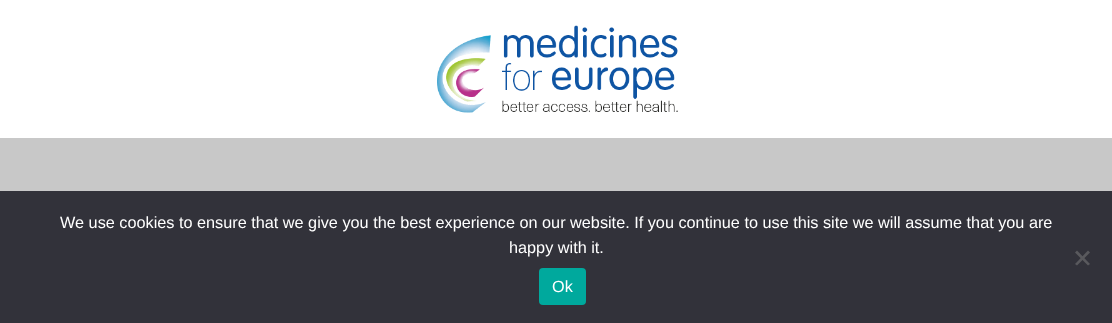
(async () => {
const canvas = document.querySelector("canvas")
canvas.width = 1112
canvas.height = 323
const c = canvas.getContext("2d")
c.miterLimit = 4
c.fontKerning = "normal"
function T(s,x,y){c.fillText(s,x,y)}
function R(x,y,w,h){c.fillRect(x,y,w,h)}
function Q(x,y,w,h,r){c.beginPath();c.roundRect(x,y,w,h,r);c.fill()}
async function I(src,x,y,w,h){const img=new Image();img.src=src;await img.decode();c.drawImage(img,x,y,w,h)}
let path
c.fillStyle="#fff"
R(0,0,1112,323)
await I("1.png",437,25,241,88)
c.fillStyle="#c8c8c8"
R(0,138,1112,53)
c.fillStyle="#32323a"
R(0,191,1112,132)
c.font="16.25px Liberation Sans"
c.fillStyle="#fff"
T("We use cookies to ensure that we give you the best experience on our website. If you continue to use this site we will assume that you are",60,228)
T("happy with it.",509,253)
c.fillStyle="#59595d"
path = new Path2D("M1088 250.5l2 2l-13 13l-2-1.5z")
c.fill(path)
path = new Path2D("M1075 252.5l2-2l13 13.5l-2 1.5z")
c.fill(path)
c.fillStyle="#00a99d"
Q(539,268,47,37,4)
c.fillStyle="#fff"
T("Ok",552,292)
})()
